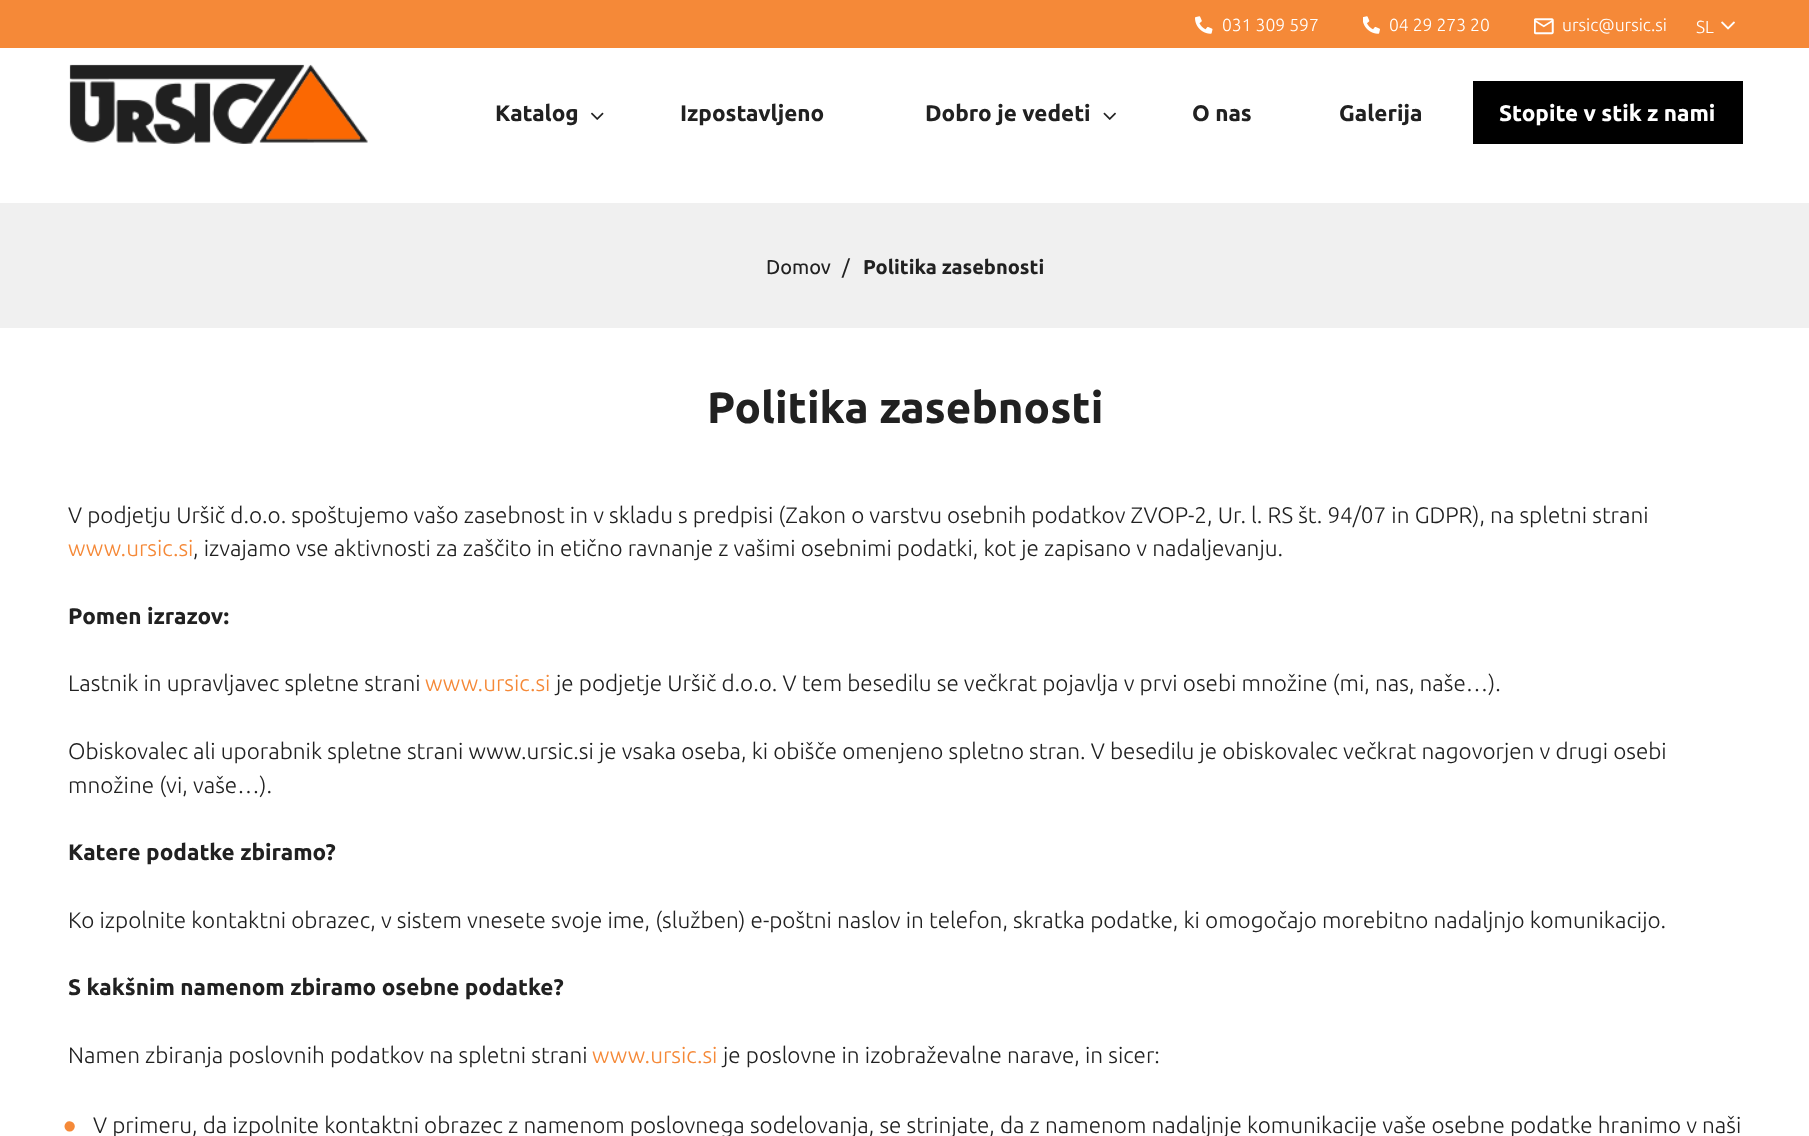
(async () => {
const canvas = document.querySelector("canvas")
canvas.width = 1809
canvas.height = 1136
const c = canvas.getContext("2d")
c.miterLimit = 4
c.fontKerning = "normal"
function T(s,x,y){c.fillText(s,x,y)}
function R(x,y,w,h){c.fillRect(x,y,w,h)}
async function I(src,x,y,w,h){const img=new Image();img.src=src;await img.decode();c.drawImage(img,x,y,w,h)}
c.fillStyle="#fff"
R(0,0,1809,1136)
c.fillStyle="#f58938"
R(0,0,1809,48)
await I("1.png",1195,16,18,18)
c.font="300 17.5px Ubuntu"
c.fillStyle="#fff"
T("031 309 597",1222,31)
await I("2.png",1363,16,17,18)
T("04 29 273 20",1389,31)
await I("3.png",1534,18,20,17)
T("ursic@ursic.si",1562,31)
T("SL",1696,33)
await I("4.png",1721,21,14,9)
c.font="bold 22.5px Ubuntu"
c.fillStyle="#212121"
T("Katalog",495,121)
await I("5.png",591,112,13,8)
T("Izpostavljeno",680,121)
T("Dobro je vedeti",925,121)
await I("6.png",1103,112,13,8)
T("O nas",1192,121)
T("Galerija",1339,121)
await I("7.png",69,64,299,80)
c.fillStyle="#000"
R(1473,81,270,63)
c.fillStyle="#fff"
T("Stopite v stik z nami",1499,121)
c.fillStyle="#f0f0f0"
R(0,203,1809,125)
c.font="20px Ubuntu"
c.fillStyle="#212121"
T("Domov",766,274)
T("/",842,274)
c.font="bold 20px Ubuntu"
T("Politika zasebnosti",863,274)
c.font="bold 43.75px Ubuntu"
T("Politika zasebnosti",707,423)
c.font="300 22.5px Ubuntu"
T("V podjetju Uršič d.o.o. spoštujemo vašo zasebnost in v skladu s predpisi (Zakon o varstvu osebnih podatkov ZVOP-2, Ur. l. RS št. 94/07 in GDPR), na spletni strani",68,523)
c.fillStyle="#f58938"
T("www.ursic.si",68,556)
c.fillStyle="#212121"
T(", izvajamo vse aktivnosti za zaščito in etično ravnanje z vašimi osebnimi podatki, kot je zapisano v nadaljevanju.",193,556)
c.font="bold 22.5px Ubuntu"
T("Pomen izrazov:",68,624)
c.font="300 22.5px Ubuntu"
T("Lastnik in upravljavec spletne strani",68,691)
c.fillStyle="#f58938"
T("www.ursic.si",425,691)
c.fillStyle="#212121"
T("je podjetje Uršič d.o.o. V tem besedilu se večkrat pojavlja v prvi osebi množine (mi, nas, naše…).",556,691)
T("Obiskovalec ali uporabnik spletne strani www.ursic.si je vsaka oseba, ki obišče omenjeno spletno stran. V besedilu je obiskovalec večkrat nagovorjen v drugi osebi",68,759)
T("množine (vi, vaše…).",68,793)
c.font="bold 22.5px Ubuntu"
T("Katere podatke zbiramo?",68,860)
c.font="300 22.5px Ubuntu"
T("Ko izpolnite kontaktni obrazec, v sistem vnesete svoje ime, (služben) e-poštni naslov in telefon, skratka podatke, ki omogočajo morebitno nadaljnjo komunikacijo.",68,928)
c.font="bold 22.5px Ubuntu"
T("S kakšnim namenom zbiramo osebne podatke?",68,995)
c.font="300 22.5px Ubuntu"
T("Namen zbiranja poslovnih podatkov na spletni strani",68,1063)
c.fillStyle="#f58938"
T("www.ursic.si",592,1063)
c.fillStyle="#212121"
T("je poslovne in izobraževalne narave, in sicer:",723,1063)
c.font="38px Liberation Sans"
c.fillStyle="#f58938"
T("•",63,1139)
c.font="300 22.5px Ubuntu"
c.fillStyle="#212121"
T("V primeru, da izpolnite kontaktni obrazec z namenom poslovnega sodelovanja, se strinjate, da z namenom nadaljnje komunikacije vaše osebne podatke hranimo v naši",93,1133)
})()
